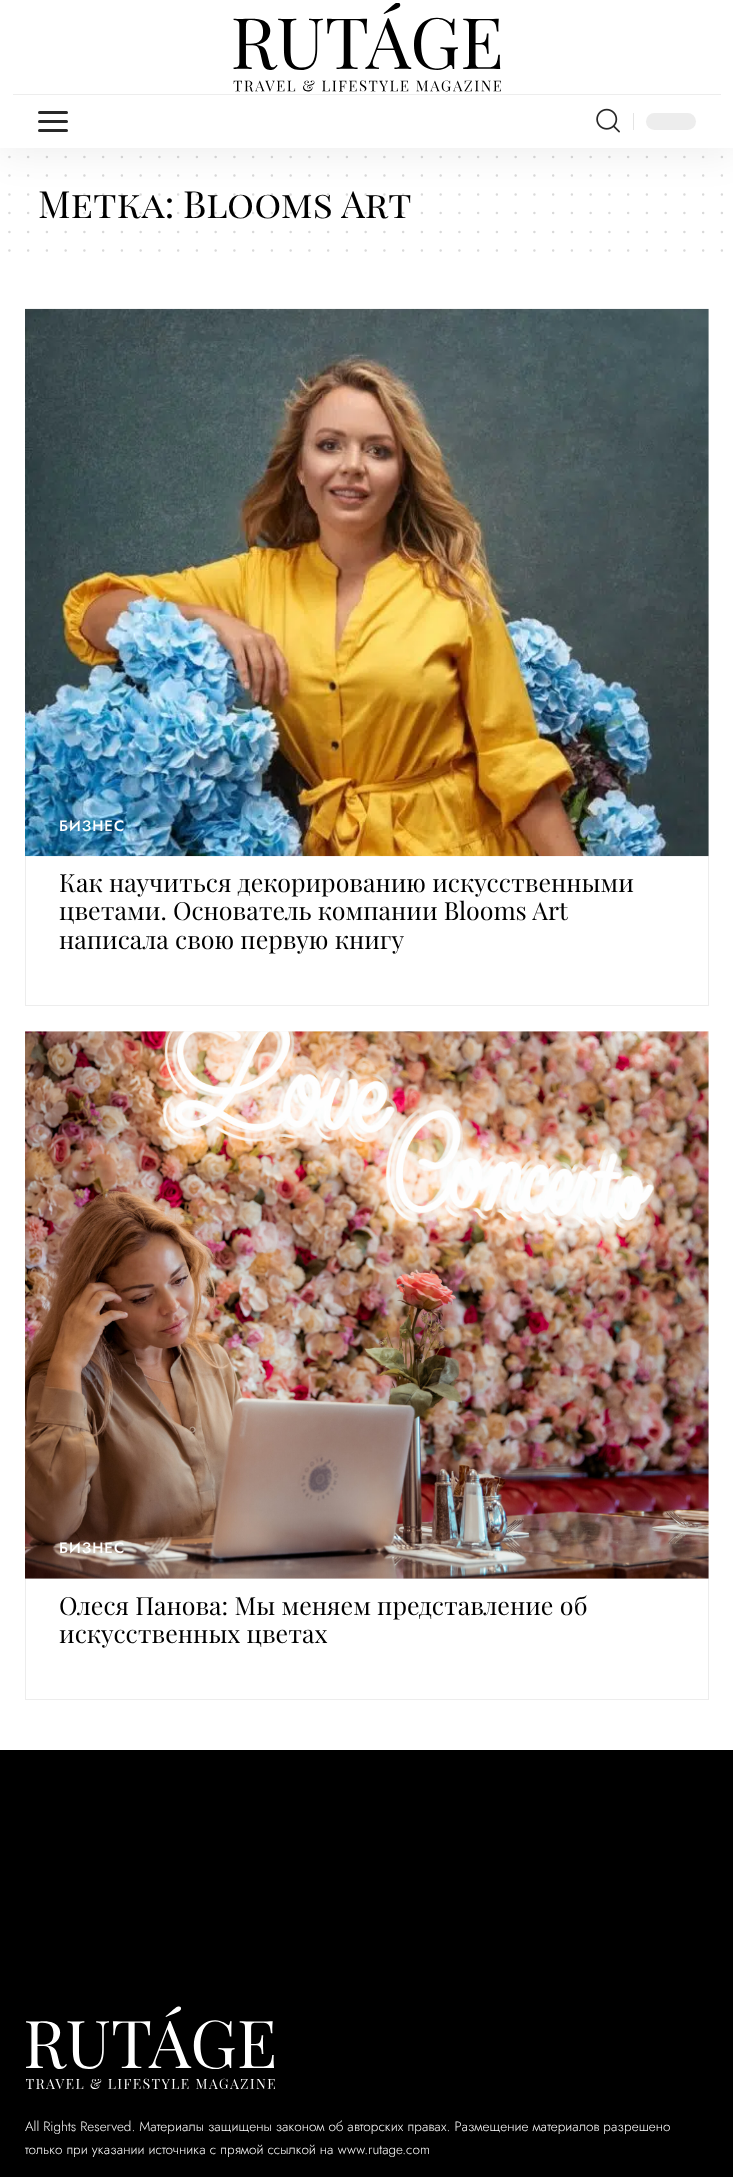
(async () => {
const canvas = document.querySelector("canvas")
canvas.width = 733
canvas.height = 2177
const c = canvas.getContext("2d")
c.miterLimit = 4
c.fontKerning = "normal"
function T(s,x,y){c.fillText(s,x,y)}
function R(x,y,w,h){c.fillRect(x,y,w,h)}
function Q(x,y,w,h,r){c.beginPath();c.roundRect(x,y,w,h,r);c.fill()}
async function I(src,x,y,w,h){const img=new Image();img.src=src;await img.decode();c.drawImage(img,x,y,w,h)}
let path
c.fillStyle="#fff"
R(0,0,733,2177)
path = new Path2D("M9.4 156.9h712.7")
c.strokeStyle="#d9d9d9"
c.lineWidth=2.5
c.lineCap="round"
c.setLineDash([0,18.75])
c.stroke(path)
path = new Path2D("M9.4 175.6h712.7")
c.stroke(path)
c.font="37.5px Playfair Display SC"
c.fillStyle="#000"
T("Метка:",38,218)
c.wordSpacing="-1px"
T("Blooms Art",183,218)
path = new Path2D("M9.4 194.4h712.7")
c.strokeStyle="#00000026"
c.stroke(path)
c.fillStyle="#00000012"
c.filter="blur(19px)"
c.beginPath()
c.rect(0,5,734,148)
c.fill()
c.filter="none"
c.fillStyle="#fff"
R(0,0,733,148)
await I("1.png",233,3,268,89)
c.fillStyle="#ededed"
R(13,94,708,1)
c.fillStyle="#282828"
Q(38,111,30,3,1.5)
Q(38,120,30,3,1.5)
Q(38,129,30,3,1.5)
await I("2.png",596,108,24,25)
c.fillStyle="#e4e4e4"
R(633,113,1,17)
c.fillStyle="#ededed"
Q(646,113,50,17,8.5)
path = new Path2D("M9.4 213.1h712.7")
c.stroke(path)
path = new Path2D("M9.4 231.9h712.7")
c.strokeStyle="#d9d9d9"
c.stroke(path)
path = new Path2D("M9.4 250.6h712.7")
c.stroke(path)
c.strokeStyle="#ededed"
c.lineWidth=1
c.setLineDash([])
c.strokeRect(25.5,309.5,683,696)
c.fillStyle="#f5f5f5"
R(708,309,1,547)
await I("3.png",25,308,684,549)
c.letterSpacing="1px"
c.wordSpacing="0px"
c.font="500 15px Jost"
c.fillStyle="#fff"
T("БИЗНЕС",59,831)
c.letterSpacing="0px"
c.font="25px Playfair Display"
c.fillStyle="#000"
T("Как научиться декорированию искусственными",59,892)
T("цветами. Основатель компании Blooms Art",59,920)
T("написала свою первую книгу",59,949)
c.strokeRect(25.5,1031.5,683,668)
c.fillStyle="#f5f5f5"
R(25,1031,684,548)
await I("4.png",25,1031,684,548)
c.letterSpacing="1px"
c.font="500 15px Jost"
c.fillStyle="#fff"
T("БИЗНЕС",59,1553)
c.letterSpacing="0px"
c.font="25px Playfair Display"
c.fillStyle="#000"
T("Олеся Панова: Мы меняем представление об",59,1615)
T("искусственных цветах",59,1643)
R(0,1750,733,427)
await I("5.png",26,2006,249,83)
c.font="300 13.5px Jost"
c.fillStyle="#fff"
T("All Rights Reserved. Материалы защищены законом об авторских правах. Размещение материалов разрешено",25,2131)
T("только при указании источника с прямой ссылкой на www.rutage.com",25,2154)
})()
